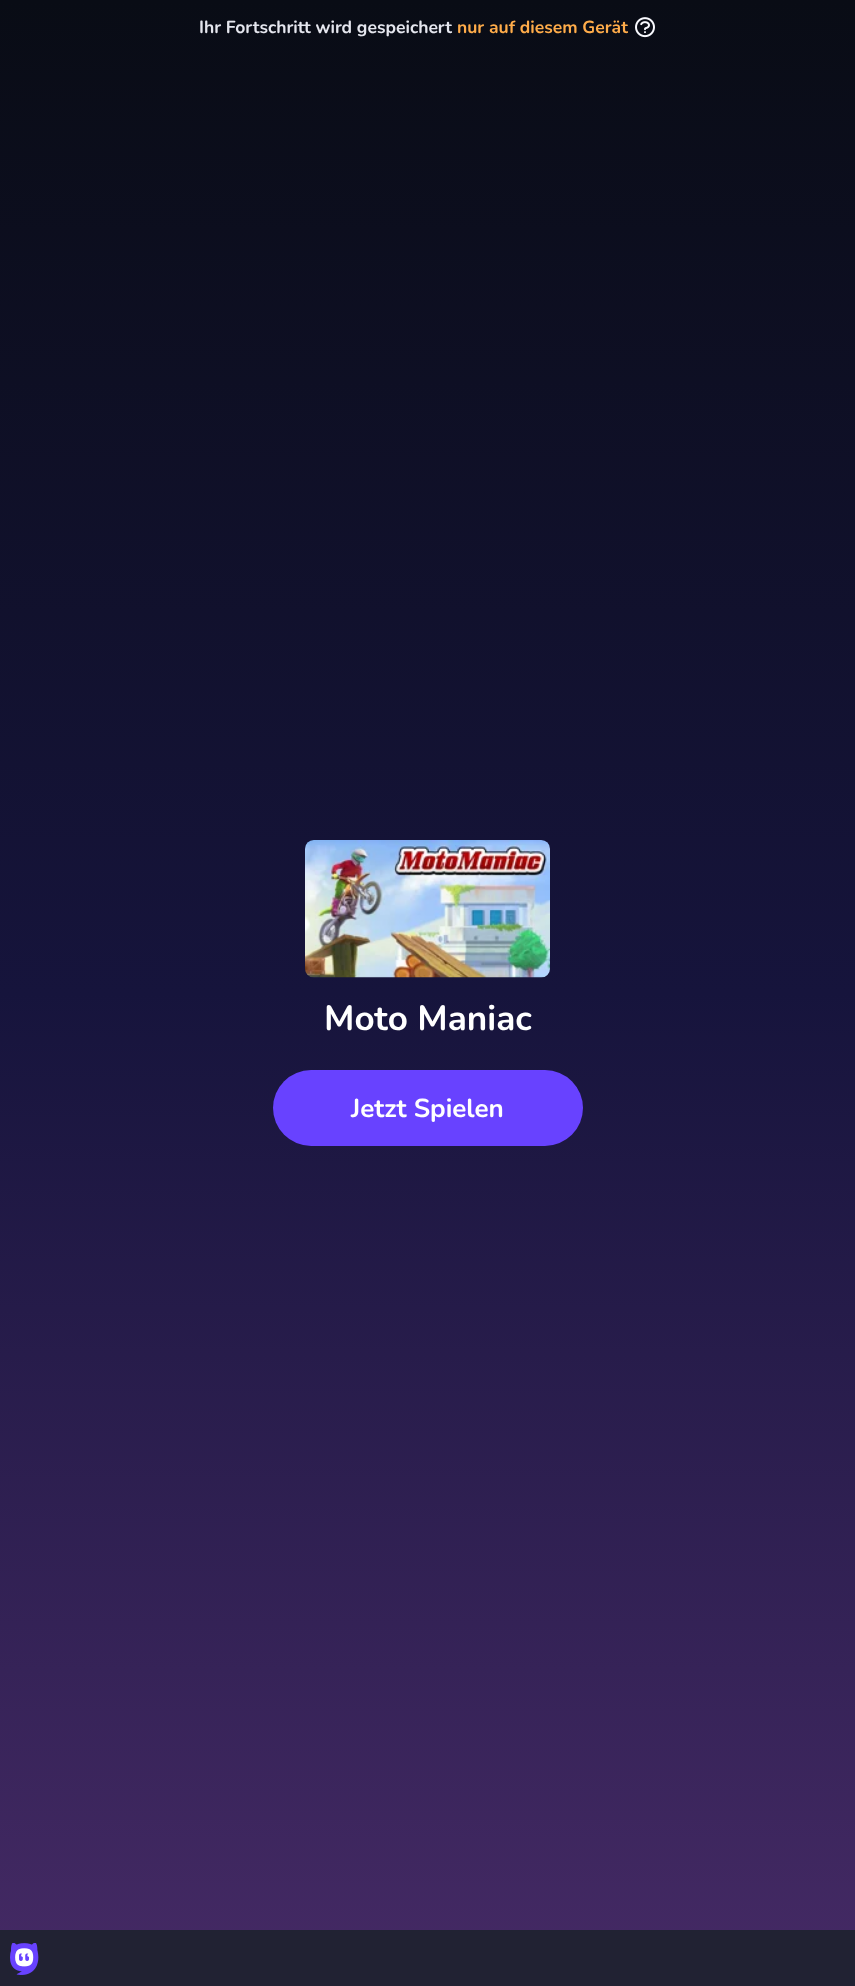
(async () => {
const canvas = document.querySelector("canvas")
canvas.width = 855
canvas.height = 1986
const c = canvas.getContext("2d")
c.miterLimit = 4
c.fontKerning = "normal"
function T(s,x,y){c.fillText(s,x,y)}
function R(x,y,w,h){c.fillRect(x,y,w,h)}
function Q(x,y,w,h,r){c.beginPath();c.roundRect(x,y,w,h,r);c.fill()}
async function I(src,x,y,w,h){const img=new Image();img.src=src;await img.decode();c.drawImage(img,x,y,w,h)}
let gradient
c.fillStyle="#fff"
R(0,0,855,1986)
gradient = c.createLinearGradient(427,0,428,1986)
gradient.addColorStop(0,"#090c15")
gradient.addColorStop(.5,"#16143c")
gradient.addColorStop(1,"#452a65")
c.fillStyle = gradient
R(0,0,855,1930)
c.font="bold 17.5px Nunito"
c.fillStyle="#e5e6ee"
T("Ihr Fortschritt wird gespeichert",199,33)
c.fillStyle="#ffac4a"
T("nur auf diesem Gerät",457,33)
await I("1.png",635,17,20,21)
await I("2.png",305,840,245,138)
c.font="bold 35px Nunito"
c.fillStyle="#fff"
T("Moto Maniac",324,1030)
c.fillStyle="#6842ff"
Q(273,1070,310,76,38)
c.font="bold 26px Nunito"
c.fillStyle="#fff"
T("Jetzt Spielen",351,1117)
c.fillStyle="#212233"
R(0,1930,855,56)
await I("3.png",10,1943,29,32)
})()
